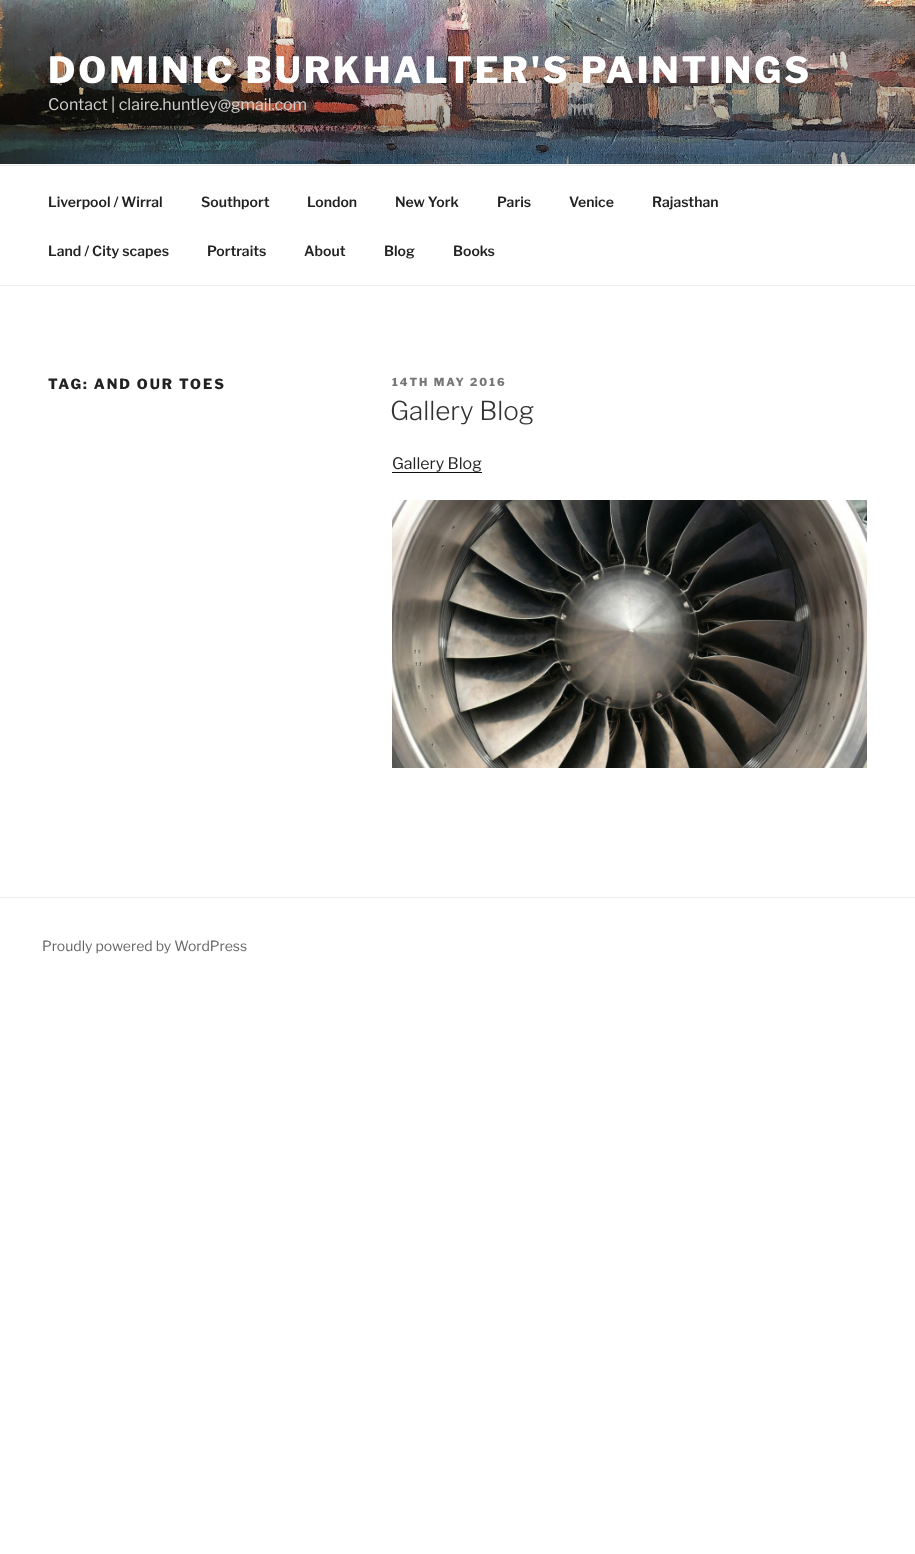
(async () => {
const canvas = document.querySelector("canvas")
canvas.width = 915
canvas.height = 1554
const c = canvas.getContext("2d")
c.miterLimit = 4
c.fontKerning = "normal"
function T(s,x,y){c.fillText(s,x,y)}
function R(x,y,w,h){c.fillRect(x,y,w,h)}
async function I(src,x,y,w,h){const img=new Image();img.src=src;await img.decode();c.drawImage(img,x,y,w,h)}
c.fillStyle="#fff"
R(0,0,915,1554)
c.fillStyle="#fafafa"
R(0,164,915,1)
await I("1.png",0,0,915,164)
c.letterSpacing="2.9px"
c.font="100 36px Libre Franklin"
c.fillStyle="#fff"
T("DOMINIC BURKHALTER'S PAINTINGS",48,83)
c.letterSpacing="0px"
c.font="100 16px 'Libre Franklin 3'"
c.fillStyle="#d5d3d1"
T("Contact | claire.huntley@gmail.com",48,110)
c.fillStyle="#eee"
R(0,165,915,1)
R(0,285,915,1)
c.font="100 14px 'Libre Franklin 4'"
c.fillStyle="#222"
T("Liverpool / Wirral",48,207)
T("Southport",201,207)
T("London",307,207)
T("New York",395,207)
T("Paris",497,207)
T("Venice",569,207)
T("Rajasthan",652,207)
T("Land / City scapes",48,256)
T("Portraits",207,256)
T("About",304,256)
T("Blog",384,256)
T("Books",453,256)
c.letterSpacing="2px"
c.font="100 14px Libre Franklin"
T("TAG: AND OUR TOES",48,389)
c.font="100 11px Libre Franklin"
c.fillStyle="#767676"
T("14TH MAY 2016",392,386)
c.letterSpacing="0px"
c.font="100 26px 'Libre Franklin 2'"
c.fillStyle="#333"
T("Gallery Blog",390,420)
c.font="100 16px 'Libre Franklin 3'"
c.fillStyle="#222"
T("Gallery Blog",392,469)
c.fillStyle="#0f0f0f"
R(392,472,90,1)
await I("2.png",392,500,475,268)
c.fillStyle="#eee"
R(0,897,915,1)
c.font="100 14px 'Libre Franklin 3'"
c.fillStyle="#666"
T("Proudly powered by WordPress",42,951)
})()
